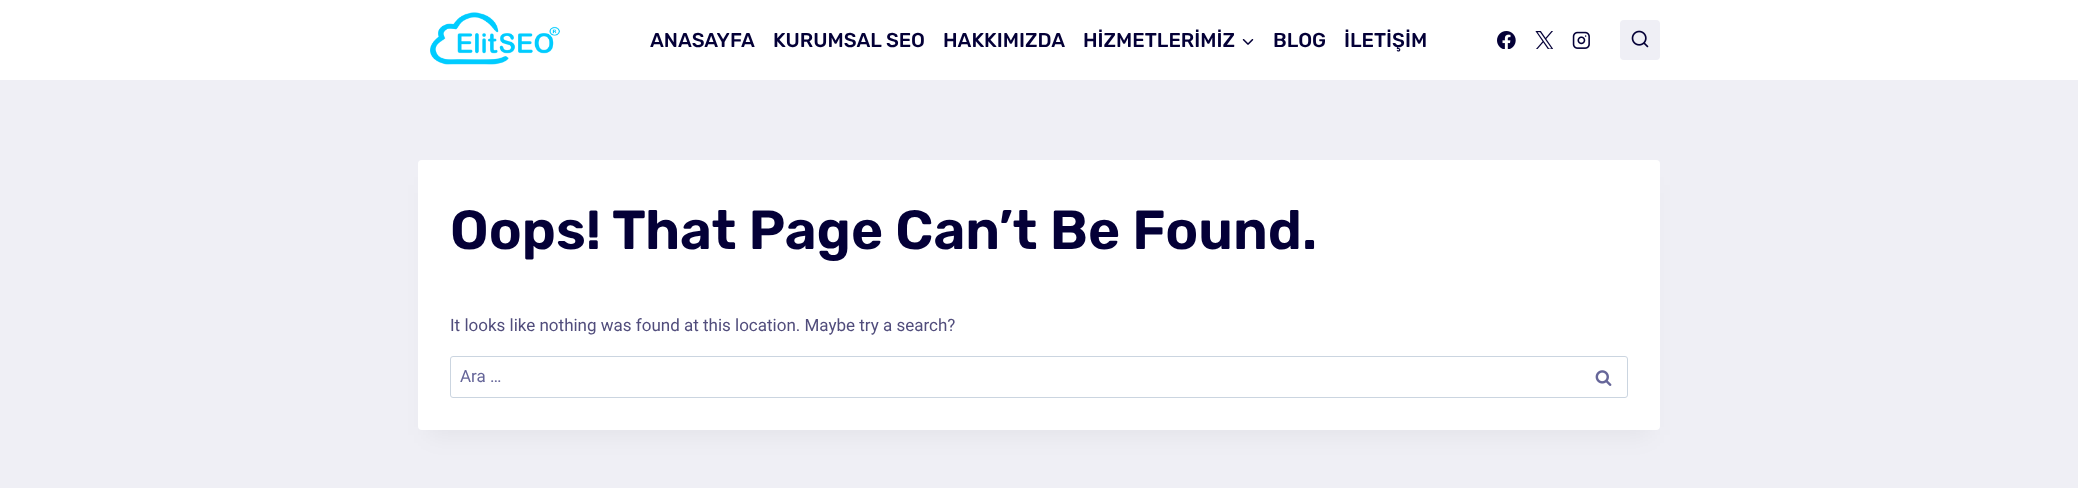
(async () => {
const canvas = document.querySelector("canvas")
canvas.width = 2078
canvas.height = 488
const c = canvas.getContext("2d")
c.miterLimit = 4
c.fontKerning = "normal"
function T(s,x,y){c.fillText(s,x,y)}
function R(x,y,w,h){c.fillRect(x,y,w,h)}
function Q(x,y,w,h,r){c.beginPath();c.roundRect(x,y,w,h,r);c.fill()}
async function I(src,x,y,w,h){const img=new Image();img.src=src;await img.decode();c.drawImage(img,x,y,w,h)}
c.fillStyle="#efeff5"
R(0,0,2078,488)
c.fillStyle="#fff"
R(0,0,2078,80)
await I("1.png",430,12,130,53)
c.font="500 20px Rubik"
c.fillStyle="#040037"
T("ANASAYFA",650,47)
T("KURUMSAL SEO",773,47)
T("HAKKIMIZDA",943,47)
T("HİZMETLERİMİZ",1083,47)
await I("2.png",1242,39,12,6)
T("BLOG",1273,47)
T("İLETİŞİM",1344,47)
await I("3.png",1497,31,19,18)
await I("4.png",1535,31,18,18)
await I("5.png",1572,31,18,18)
c.fillStyle="#efeff5"
Q(1620,20,40,40,4)
await I("6.png",1631,30,18,18)
c.fillStyle="#0000000d"
c.filter="blur(12.5px)"
c.beginPath()
c.rect(428,185,1222,250)
c.fill()
c.filter="none"
c.fillStyle="#fff"
Q(418,160,1242,270,4)
c.font="600 55px Rubik"
c.fillStyle="#040037"
T("Oops! That Page Can’t Be Found.",450,249)
c.font="17px Roboto"
c.fillStyle="#514d7c"
T("It looks like nothing was found at this location. Maybe try a search?",450,331)
c.beginPath()
c.roundRect(450.5,356.5,1177,41,2.5)
c.strokeStyle="#cbd5e0"
c.stroke()
c.fillStyle="#669"
T("Ara …",460,382)
await I("7.png",1595,370,17,16)
})()
